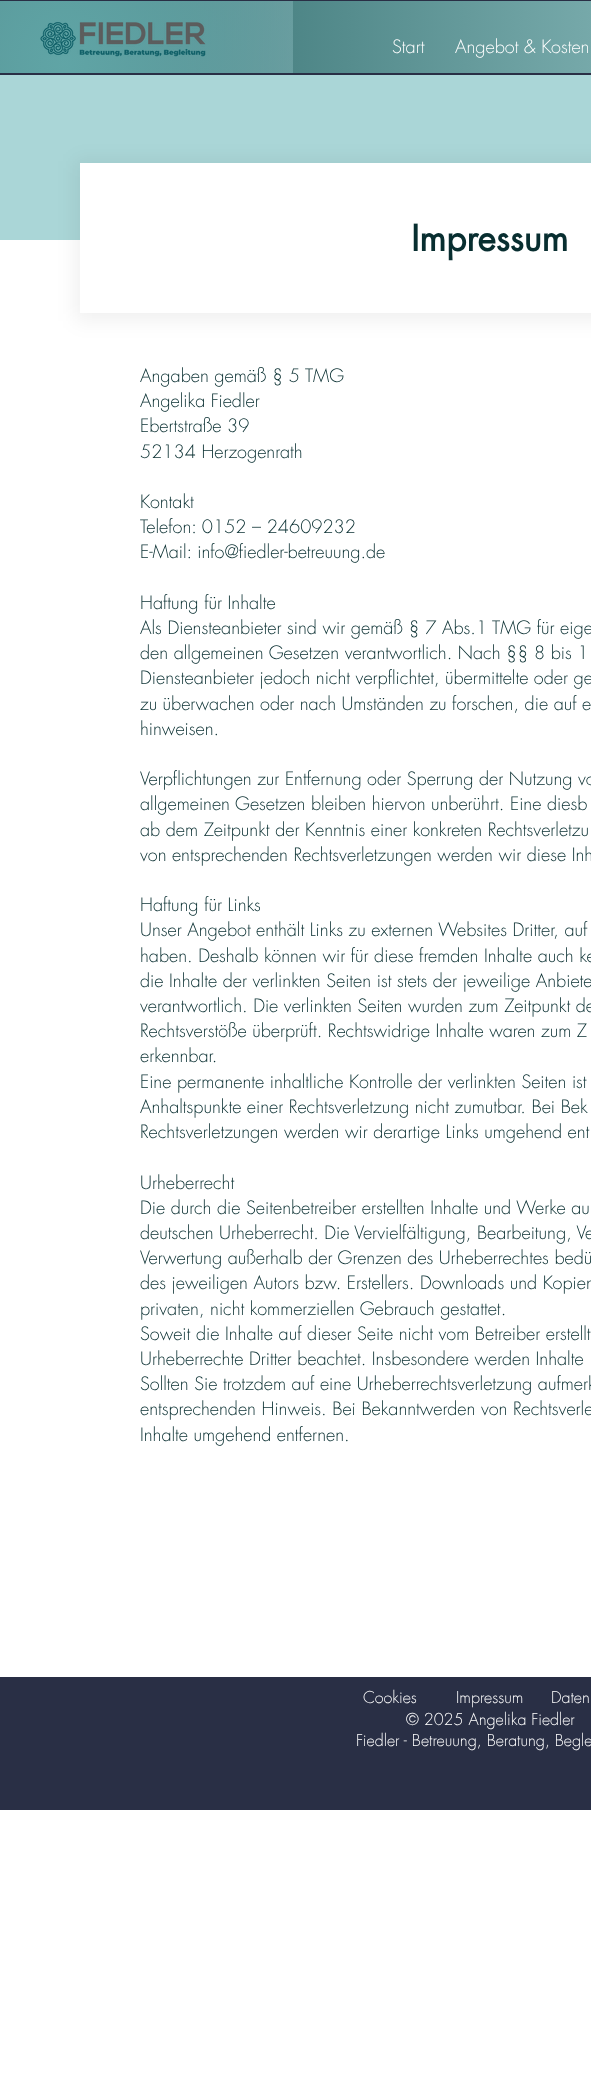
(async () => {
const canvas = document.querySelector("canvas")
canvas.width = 591
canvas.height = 2084
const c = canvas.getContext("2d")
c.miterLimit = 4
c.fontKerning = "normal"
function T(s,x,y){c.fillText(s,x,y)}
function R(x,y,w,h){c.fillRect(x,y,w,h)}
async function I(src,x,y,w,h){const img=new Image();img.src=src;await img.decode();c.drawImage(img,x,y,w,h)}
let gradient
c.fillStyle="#fff"
R(0,0,591,2084)
c.fillStyle="#292f45"
R(0,0,591,75)
gradient = c.createRadialGradient(479,37,0,479,37,502)
gradient.addColorStop(0,"#fff")
gradient.addColorStop(1,"#292f45")
c.fillStyle = gradient
R(0,1,293,72)
gradient = c.createRadialGradient(918,9,0,918,9,920)
gradient.addColorStop(0,"#60a5a6")
gradient.addColorStop(.7,"#60a5a600")
c.fillStyle = gradient
R(290,1,3,59)
gradient = c.createRadialGradient(60,10,0,60,10,922)
gradient.addColorStop(0,"#4e8687")
gradient.addColorStop(.7,"#4e868700")
c.fillStyle = gradient
R(0,1,293,72)
gradient = c.createRadialGradient(64,64,0,64,64,918)
gradient.addColorStop(0,"#60a5a6fc")
gradient.addColorStop(.5,"#60a5a600")
c.fillStyle = gradient
R(0,1,293,72)
await I("1.png",40,22,166,35)
gradient = c.createLinearGradient(293,37,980,37)
gradient.addColorStop(0,"#4e8687")
gradient.addColorStop(1,"#aad6d7")
c.fillStyle = gradient
R(293,1,298,72)
c.font="300 18px futura"
c.fillStyle="#fff"
T("Start",392,53)
T("Angebot & Kosten",455,53)
c.fillStyle="#aad6d7"
R(0,75,591,165)
c.fillStyle="#0000000f"
c.filter="blur(10px)"
c.beginPath()
c.rect(75,161,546,160)
c.fill()
c.filter="none"
c.fillStyle="#fff"
R(80,163,511,150)
c.font="bold 35px futura"
c.fillStyle="#082e30"
T("Impressum",411,251)
c.font="300 18px futura"
T("Angaben gemäß § 5 TMG",140,382)
T("Angelika Fiedler",140,407)
T("Ebertstraße 39",140,432)
T("52134 Herzogenrath",140,458)
T("Kontakt",140,508)
T("Telefon: 0152 – 24609232",140,533)
T("E-Mail: info@fiedler-betreuung.de",140,558)
T("Haftung für Inhalte",140,609)
T("Als Diensteanbieter sind wir gemäß § 7 Abs.1 TMG für eige",140,634)
T("den allgemeinen Gesetzen verantwortlich. Nach §§ 8 bis 1",140,659)
T("Diensteanbieter jedoch nicht verpflichtet, übermittelte oder ge",140,684)
T("zu überwachen oder nach Umständen zu forschen, die auf e",140,710)
T("hinweisen.",140,735)
T("Verpflichtungen zur Entfernung oder Sperrung der Nutzung vo",140,785)
T("allgemeinen Gesetzen bleiben hiervon unberührt. Eine diesb",140,810)
T("ab dem Zeitpunkt der Kenntnis einer konkreten Rechtsverletzu",140,836)
T("von entsprechenden Rechtsverletzungen werden wir diese Inh",140,861)
T("Haftung für Links",140,911)
T("Unser Angebot enthält Links zu externen Websites Dritter, auf",140,936)
T("haben. Deshalb können wir für diese fremden Inhalte auch ke",140,962)
T("die Inhalte der verlinkten Seiten ist stets der jeweilige Anbiete",140,987)
T("verantwortlich. Die verlinkten Seiten wurden zum Zeitpunkt de",140,1012)
T("Rechtsverstöße überprüft. Rechtswidrige Inhalte waren zum Z",140,1037)
T("erkennbar.",140,1062)
T("Eine permanente inhaltliche Kontrolle der verlinkten Seiten ist",140,1088)
T("Anhaltspunkte einer Rechtsverletzung nicht zumutbar. Bei Bek",140,1113)
T("Rechtsverletzungen werden wir derartige Links umgehend ent",140,1138)
T("Urheberrecht",140,1189)
T("Die durch die Seitenbetreiber erstellten Inhalte und Werke au",140,1214)
T("deutschen Urheberrecht. Die Vervielfältigung, Bearbeitung, Ve",140,1239)
T("Verwertung außerhalb der Grenzen des Urheberrechtes bedü",140,1264)
T("des jeweiligen Autors bzw. Erstellers. Downloads und Kopien",140,1289)
T("privaten, nicht kommerziellen Gebrauch gestattet.",140,1315)
T("Soweit die Inhalte auf dieser Seite nicht vom Betreiber erstellt",140,1340)
T("Urheberrechte Dritter beachtet. Insbesondere werden Inhalte",140,1365)
T("Sollten Sie trotzdem auf eine Urheberrechtsverletzung aufmerk",140,1390)
T("entsprechenden Hinweis. Bei Bekanntwerden von Rechtsverle",140,1415)
T("Inhalte umgehend entfernen.",140,1441)
c.fillStyle="#292f45"
R(0,1677,591,133)
c.font="300 16px futura"
c.fillStyle="#fff"
T("Cookies",363,1703)
T("Impressum",456,1703)
T("Daten",551,1703)
T("© 2025 Angelika Fiedler",406,1725)
T("Fiedler - Betreuung, Beratung, Begle",356,1746)
})()
